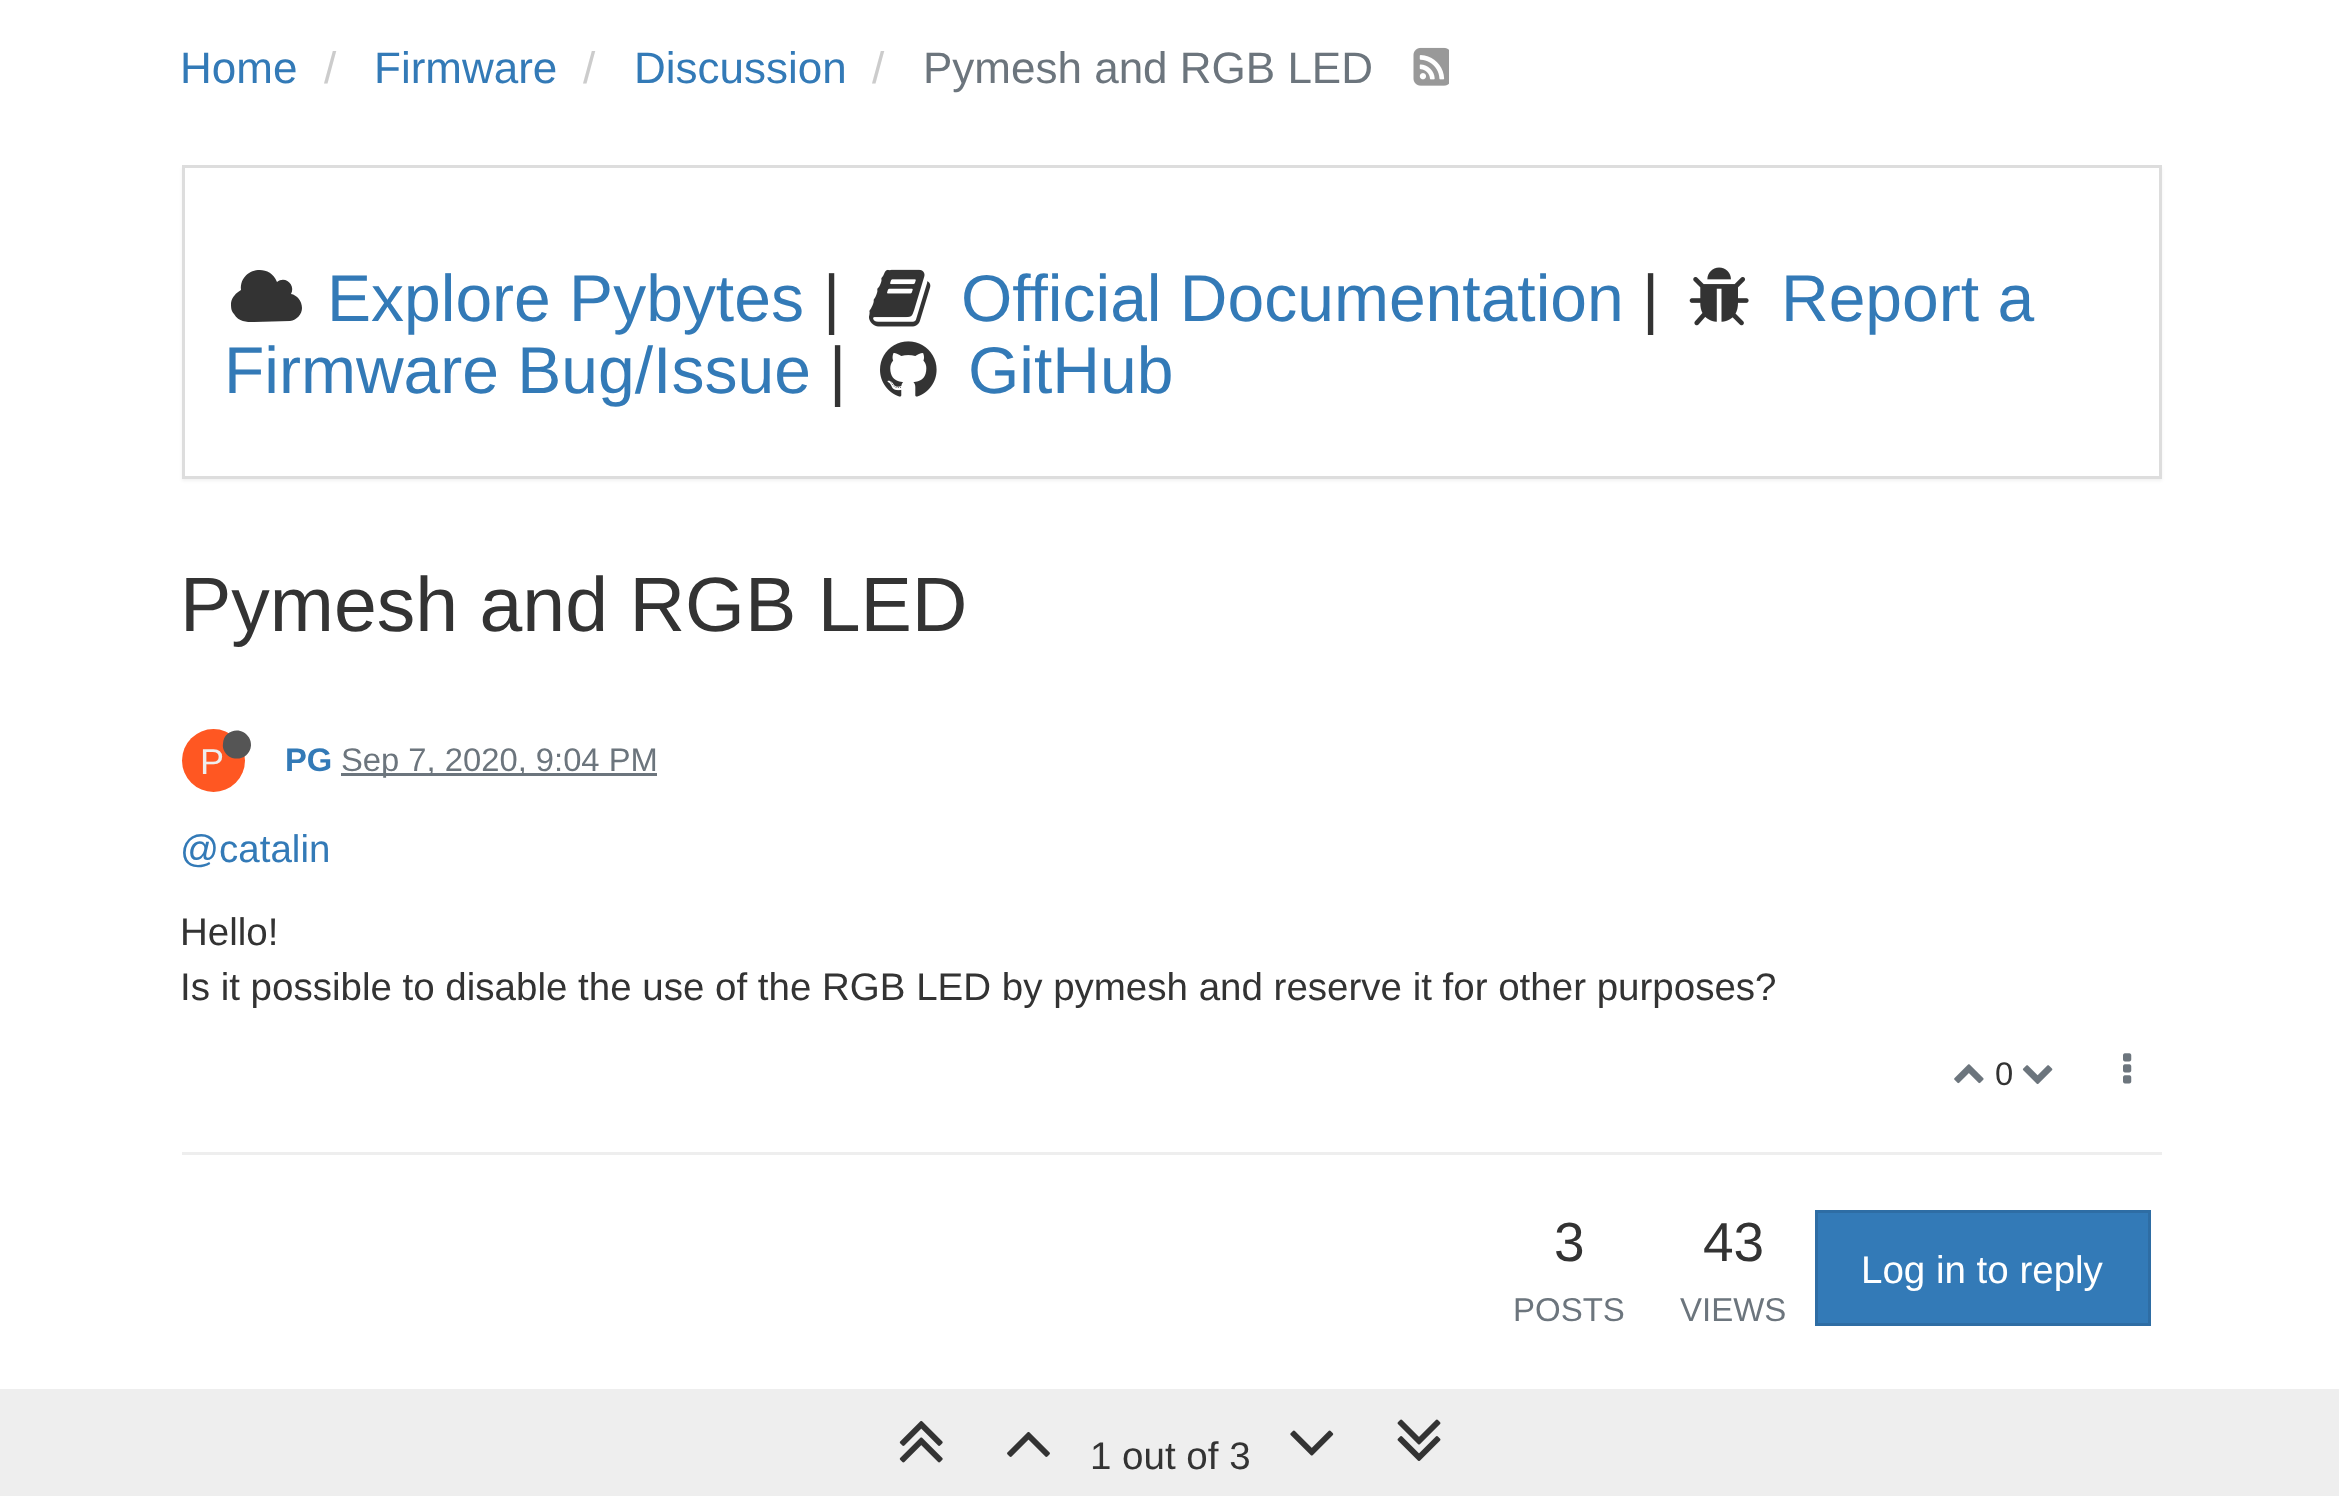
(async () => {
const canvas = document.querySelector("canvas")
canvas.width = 2339
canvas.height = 1496
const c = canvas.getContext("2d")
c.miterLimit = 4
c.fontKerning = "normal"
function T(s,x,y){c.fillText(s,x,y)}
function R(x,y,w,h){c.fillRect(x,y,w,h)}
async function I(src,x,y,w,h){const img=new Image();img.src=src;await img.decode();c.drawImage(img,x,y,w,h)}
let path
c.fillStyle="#fff"
R(0,0,2339,1496)
c.font="44px Liberation Sans"
c.fillStyle="#337ab7"
T("Home",180,83)
c.fillStyle="#ccc"
T("/",324,83)
c.fillStyle="#337ab7"
T("Firmware",374,83)
c.fillStyle="#ccc"
T("/",583,83)
c.fillStyle="#337ab7"
T("Discussion",634,83)
c.fillStyle="#ccc"
T("/",872,83)
c.fillStyle="#6c757d"
T("Pymesh and RGB LED",923,83)
await I("1.png",1413,47,36,39)
c.fillStyle="#0000000d"
c.filter="blur(1.5px)"
c.beginPath()
c.rect(182,168,1980,313)
c.fill()
c.filter="none"
c.fillStyle="#fff"
c.beginPath()
c.rect(183.5,166.5,1977,311)
c.fill()
c.strokeStyle="#ddd"
c.lineWidth=3
c.stroke()
c.fillStyle="#333"
path = new Path2D("M302 308c0 6-5 12-12 13l-36 1c-8 0-15 0-20-8c-3-3-3-7-3-11c1-6 5-10 10-13c-2-21 28-28 36-8c8-7 19 3 14 12c6 1 11 7 11 14z")
c.fill(path)
c.font="66px Liberation Sans"
c.fillStyle="#337ab7"
T("Explore Pybytes",327,321)
c.fillStyle="#333"
T("|",823,321)
await I("2.png",869,269,62,58)
c.fillStyle="#337ab7"
T("Official Documentation",961,321)
c.fillStyle="#333"
T("|",1642,321)
await I("3.png",1689,267,60,59)
c.fillStyle="#337ab7"
T("Report a",1781,321)
T("Firmware Bug/Issue",224,393)
c.fillStyle="#333"
T("|",829,393)
await I("4.png",880,341,57,56)
c.fillStyle="#337ab7"
T("GitHub",968,393)
c.font="77px Liberation Sans"
c.fillStyle="#333"
T("Pymesh and RGB LED",180,631)
c.fillStyle="#ff5722"
c.beginPath()
c.arc(213.5,760.5,31.5,0,7)
c.fill()
c.fillStyle="#555"
path = new Path2D("M249 737.5c1.5 2.5 2 5 2 8c-1 14-19.5 18-26.5 6c-1.5-2.5-2-5-1.5-8c.5-14 19-18 26-6z")
c.fill(path)
c.font="36px Liberation Sans"
c.fillStyle="#eee"
T("P",200,774)
c.font="bold 32.75px Liberation Sans"
c.fillStyle="#337ab7"
T("PG",285,771)
c.fillStyle="#6c757d"
R(341,773,316,3)
c.font="32.75px Liberation Sans"
T("Sep 7, 2020, 9:04 PM",341,771)
c.font="38.5px Liberation Sans"
c.fillStyle="#337ab7"
T("@catalin",180,862)
c.fillStyle="#333"
T("Hello!",180,945)
T("Is it possible to disable the use of the RGB LED by pymesh and reserve it for other purposes?",180,1000)
await I("5.png",1954,1064,30,20)
c.font="32.75px Liberation Sans"
T("0",1995,1085)
await I("6.png",2022,1065,31,20)
await I("7.png",2123,1053,9,31)
c.fillStyle="#eee"
R(182,1152,1980,3)
c.font="55px Liberation Sans"
c.fillStyle="#333"
T("3",1554,1261)
c.font="33px Liberation Sans"
c.fillStyle="#6c757d"
T("POSTS",1513,1321)
c.font="55px Liberation Sans"
c.fillStyle="#333"
T("43",1703,1261)
c.font="33px Liberation Sans"
c.fillStyle="#6c757d"
T("VIEWS",1680,1321)
c.fillStyle="#337ab7"
c.beginPath()
c.rect(1816.5,1211.5,333,113)
c.fill()
c.strokeStyle="#2e6da4"
c.stroke()
c.font="38.5px Liberation Sans"
c.fillStyle="#fff"
T("Log in to reply",1861,1283)
c.fillStyle="#eee"
R(0,1389,2339,107)
await I("8.png",899,1420,44,43)
await I("9.png",1007,1431,43,26)
c.fillStyle="#333"
T("1 out of 3",1090,1469)
await I("10.png",1290,1430,44,26)
await I("11.png",1397,1419,44,42)
})()
